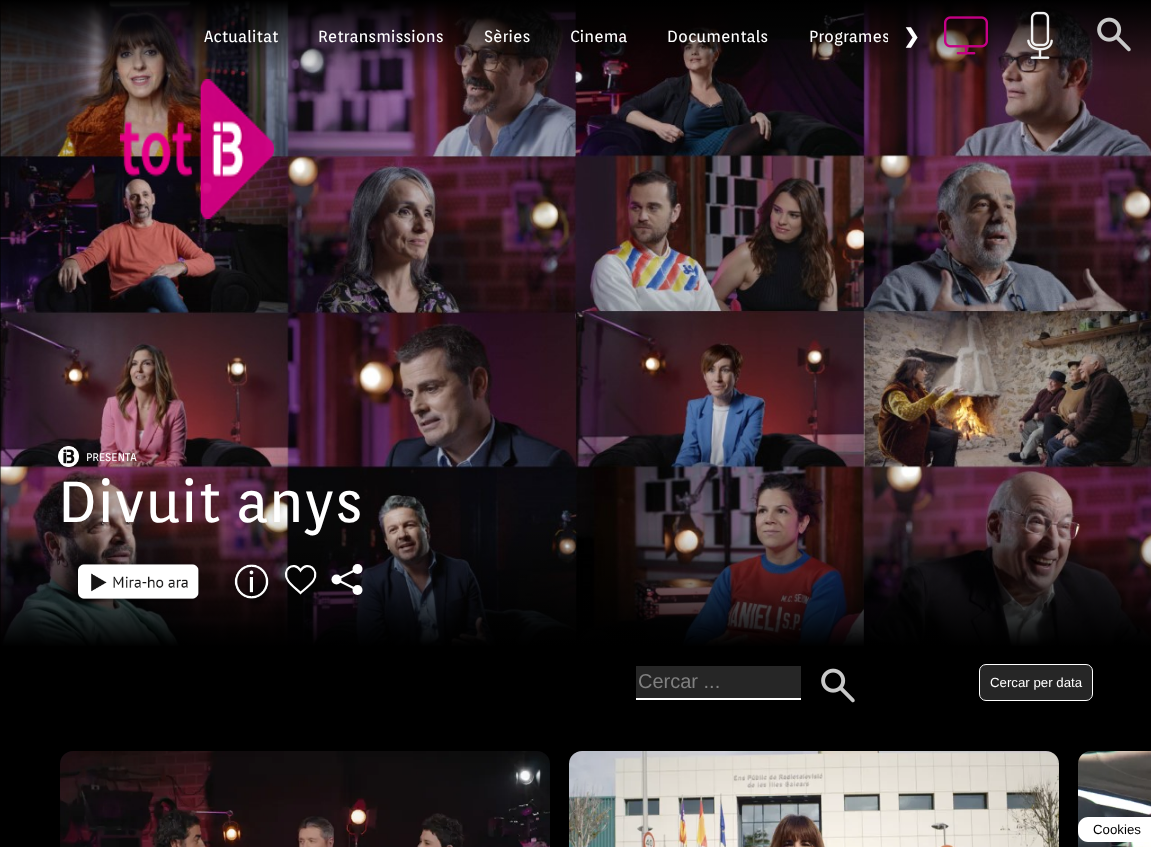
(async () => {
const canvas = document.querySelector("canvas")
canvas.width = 1151
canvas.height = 847
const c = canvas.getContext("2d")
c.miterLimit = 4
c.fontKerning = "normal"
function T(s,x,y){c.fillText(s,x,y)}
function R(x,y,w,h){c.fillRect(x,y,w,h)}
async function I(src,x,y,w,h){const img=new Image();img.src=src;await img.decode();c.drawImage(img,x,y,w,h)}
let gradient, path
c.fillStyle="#000"
R(0,0,1151,847)
await I("5.png",0,0,1151,646)
gradient = c.createLinearGradient(576,0,576,72)
gradient.addColorStop(0,"#000")
gradient.addColorStop(1,"#00000000")
c.fillStyle = gradient
R(0,0,1151,70)
c.font="16px Orienta"
c.fillStyle="#fff"
T("Actualitat",204,42)
T("Retransmissions",318,42)
T("Sèries",484,42)
T("Cinema",570,42)
T("Documentals",667,42)
c.save()
c.beginPath()
c.rect(184,8,704,56)
c.clip()
T("Programes",809,42)
c.restore()
c.font="bold 20px DejaVu Sans"
T("❯",903,43)
await I("1.png",944,16,44,39)
await I("2.png",1027,11,26,48)
await I("3.png",1097,17,34,35)
await I("4.png",120,79,154,140)
await I("6.png",57,446,22,25)
c.font="11px Orienta"
T("PRESENTA",86,461)
gradient = c.createLinearGradient(576,527,576,647)
gradient.addColorStop(0,"#00000000")
gradient.addColorStop(1,"#000")
c.fillStyle = gradient
R(0,530,1151,116)
c.font="57.5px Orienta"
c.fillStyle="#fff"
T("Divuit anys",58,522)
await I("7.png",77,562,123,40)
await I("8.png",234,564,35,35)
path = new Path2D("M300.5 593c-3.5-3.5-10-8-12.5-12.5c-7-10.5 5.5-20.5 12.5-10c7-10.5 19.5-.5 13 10c-2.5 4-9 9-12.5 12z")
c.strokeStyle="#fff"
c.lineWidth=2.2
c.stroke(path)
c.beginPath()
c.arc(357.5,569,5,0,7)
c.fill()
c.beginPath()
c.arc(336.5,579.5,5,0,7)
c.fill()
c.beginPath()
c.arc(357.5,590,5,0,7)
c.fill()
path = new Path2D("M357.5 569l-21 10.5l21 10.5")
c.stroke(path)
c.fillStyle="#262626"
R(636,666,165,32)
c.fillStyle="#fff"
R(636,698,165,2)
c.font="20px Liberation Sans"
c.fillStyle="#808080"
T("Cercar ...",638,688)
await I("9.png",821,668,34,35)
c.fillStyle="#262626"
c.beginPath()
c.roundRect(979.5,664.5,113,36,6.5)
c.fill()
c.lineWidth=1
c.stroke()
c.font="13.25px Liberation Sans"
c.fillStyle="#fff"
T("Cercar per data",990,687)
await I("10.png",60,751,490,96)
await I("11.png",569,751,490,96)
await I("12.png",1078,751,73,96)
path = new Path2D("M1088 817h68v25h-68c-5.5 0-10-4.5-10-10v-5c0-5.5 4.5-10 10-10z")
c.fill(path)
c.fillStyle="#000"
T("Cookies",1093,834)
})()
